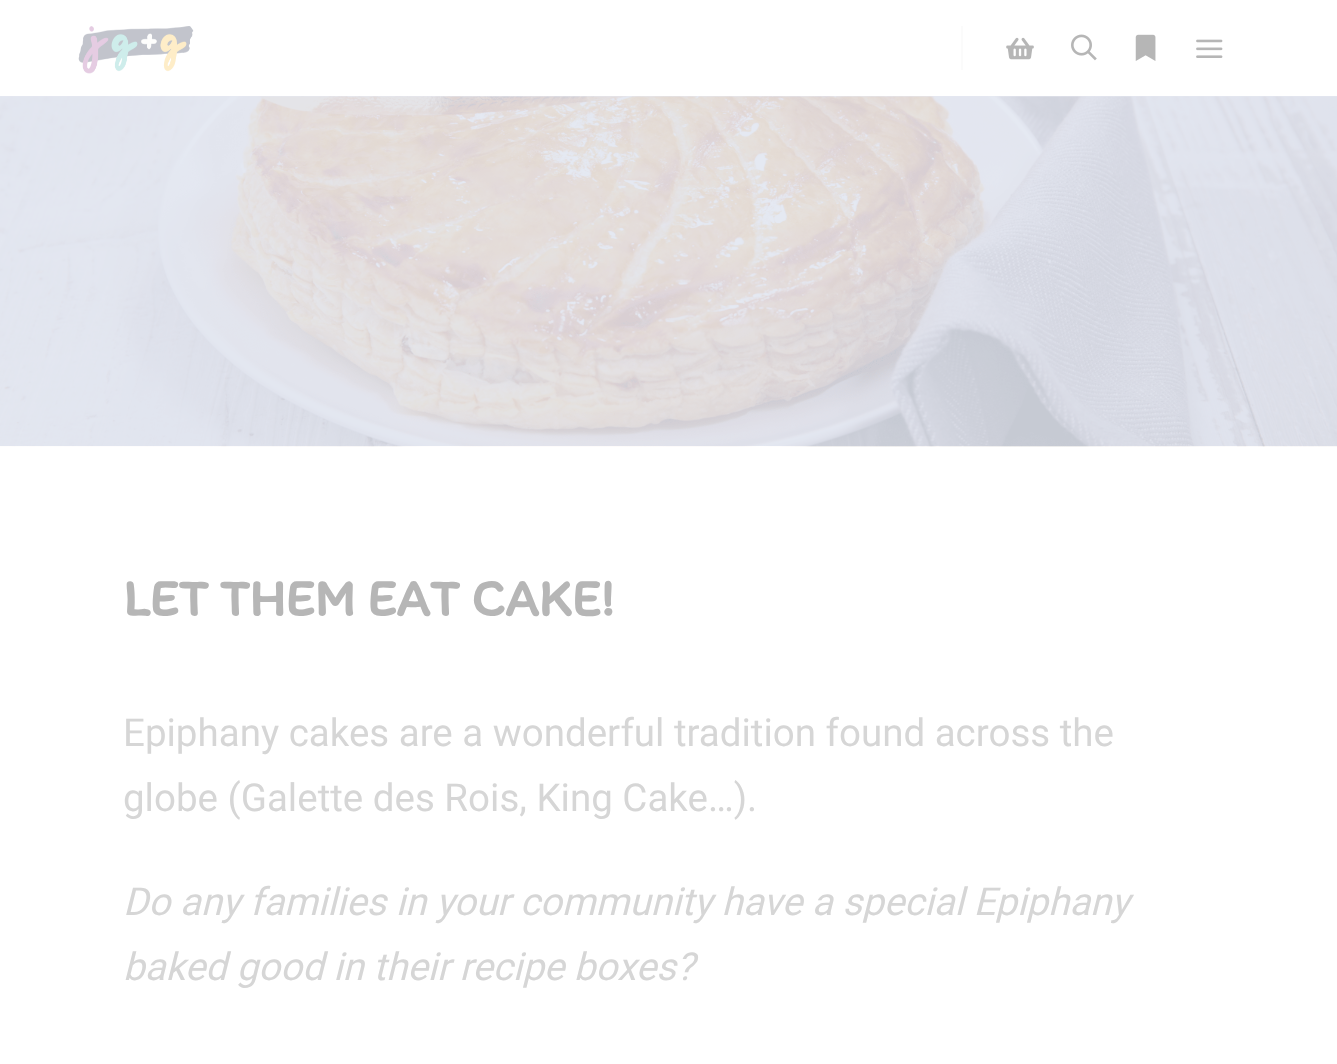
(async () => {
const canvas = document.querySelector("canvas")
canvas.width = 1337
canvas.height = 1064
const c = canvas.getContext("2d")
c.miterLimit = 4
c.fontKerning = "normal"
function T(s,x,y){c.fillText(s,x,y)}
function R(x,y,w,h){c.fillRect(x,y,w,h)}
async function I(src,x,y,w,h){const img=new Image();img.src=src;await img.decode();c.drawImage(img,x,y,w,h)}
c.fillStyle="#fff"
R(0,0,1337,1064)
c.fillStyle="#e5e9f2"
R(0,96,1337,1)
await I("1.png",78,26,116,48)
c.fillStyle="#fbfbfb"
R(961,26,2,44)
await I("2.png",1006,37,28,23)
await I("3.png",1071,34,26,27)
await I("4.png",1135,34,21,27)
await I("5.png",1196,39,27,19)
await I("6.png",0,96,1337,351)
c.font="bold 52.5px Itim"
c.fillStyle="#b6b6b6"
T("LET THEM EAT CAKE!",123,616)
c.font="38.5px Roboto"
c.fillStyle="#d6d6d6"
T("Epiphany cakes are a wonderful tradition found across the",123,746)
T("globe (Galette des Rois, King Cake…).",123,811)
c.font="italic 38.5px Roboto"
T("Do any families in your community have a special Epiphany",123,915)
T("baked good in their recipe boxes?",123,980)
})()
